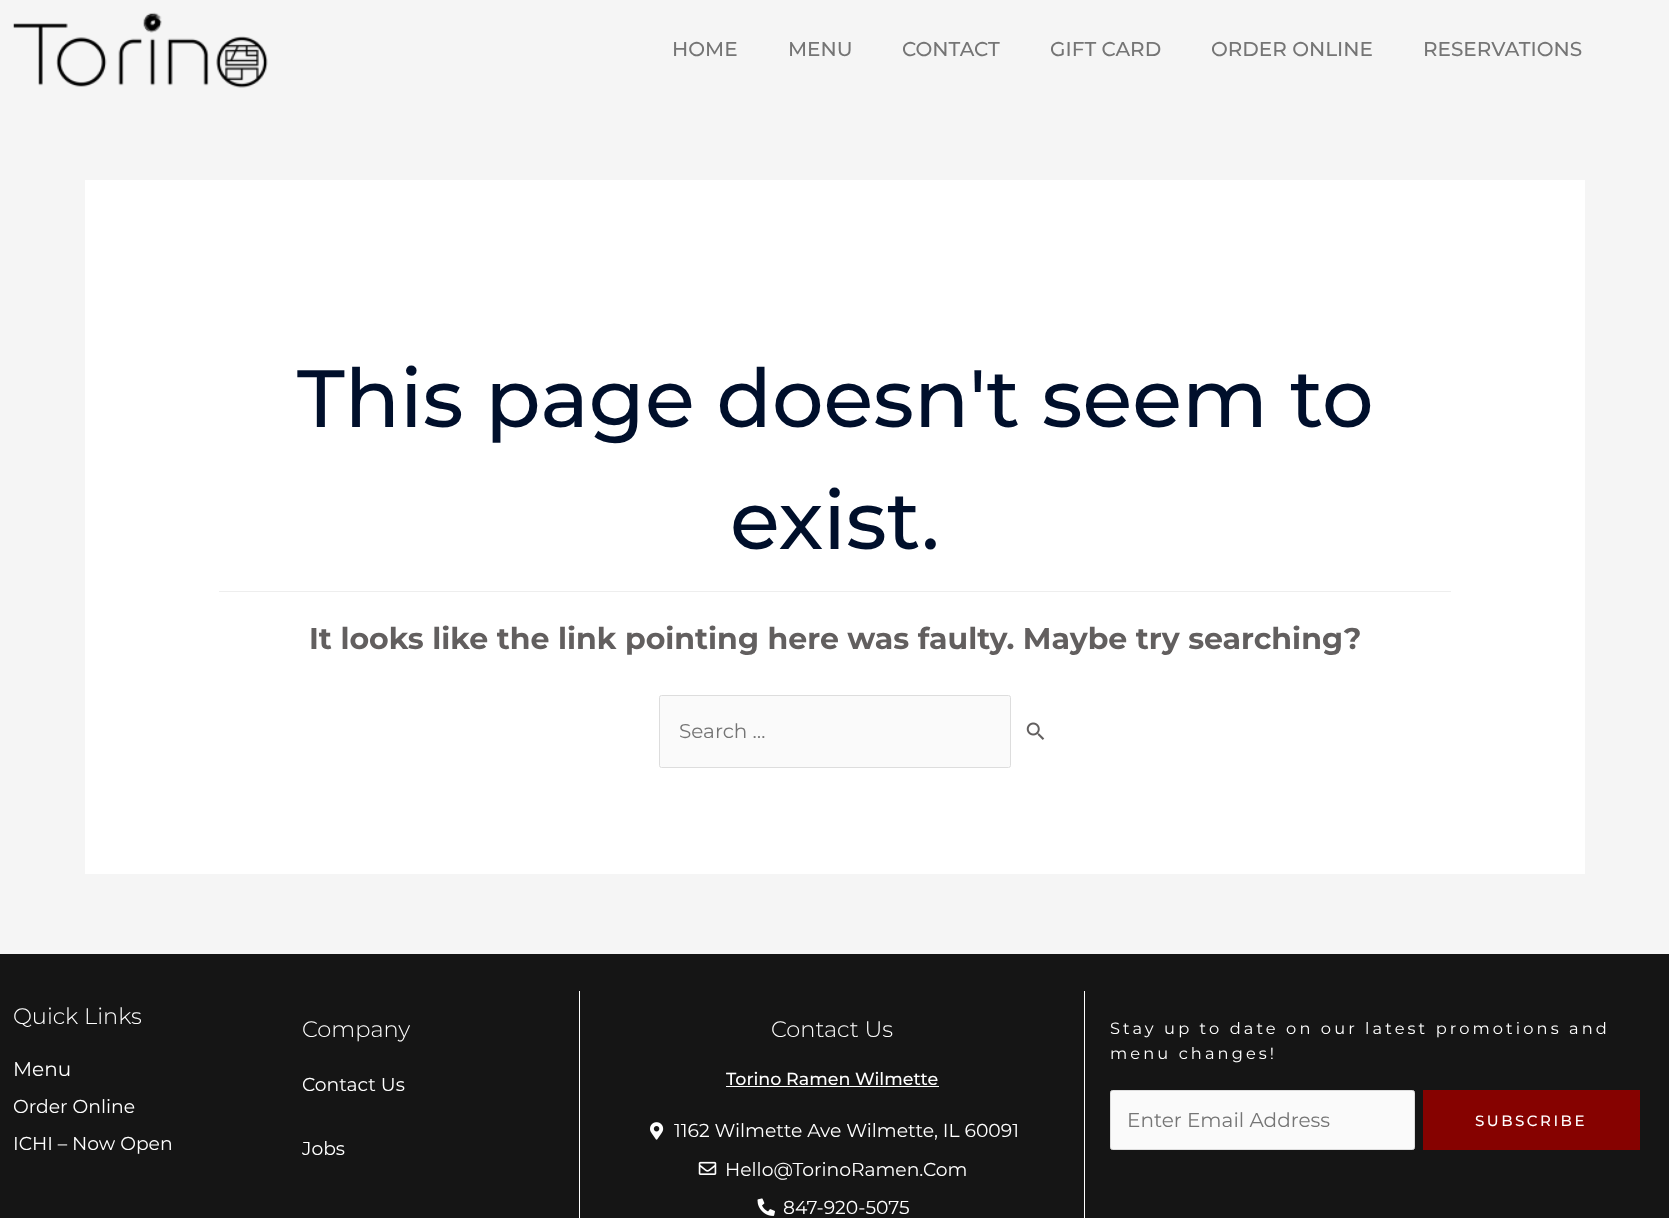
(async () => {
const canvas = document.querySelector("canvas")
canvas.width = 1669
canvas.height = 1218
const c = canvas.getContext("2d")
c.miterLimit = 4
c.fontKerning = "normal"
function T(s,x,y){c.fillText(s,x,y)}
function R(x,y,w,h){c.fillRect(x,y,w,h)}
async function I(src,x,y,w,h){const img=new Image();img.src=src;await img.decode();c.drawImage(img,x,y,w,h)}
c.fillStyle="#f5f5f5"
R(0,0,1669,1218)
await I("1.png",13,12,255,76)
c.font="500 20px Montserrat"
c.fillStyle="#757575"
T("HOME",672,56)
T("MENU",788,56)
T("CONTACT",902,56)
T("GIFT CARD",1050,56)
T("ORDER ONLINE",1211,56)
T("RESERVATIONS",1423,56)
c.fillStyle="#fff"
R(85,180,1500,694)
c.fillStyle="#eee"
R(219,591,1232,1)
c.font="500 81.25px Montserrat"
c.fillStyle="#000f2b"
T("This page doesn't seem to",297,427)
T("exist.",730,549)
c.font="bold 30px Montserrat"
c.fillStyle="#625f5f"
T("It looks like the link pointing here was faulty. Maybe try searching?",309,649)
c.fillStyle="#fafafa"
c.beginPath()
c.roundRect(659.5,695.5,351,72,2)
c.fill()
c.strokeStyle="#ddd"
c.stroke()
c.font="20px Montserrat"
c.fillStyle="#757575"
T("Search …",679,738)
await I("2.png",1026,722,19,18)
c.fillStyle="#151515"
R(0,954,1669,264)
c.font="300 22.5px Montserrat"
c.fillStyle="#fff"
T("Quick Links",13,1024)
c.font="20px Montserrat"
T("Menu",13,1076)
c.font="18.75px Montserrat"
T("Order Online",13,1113)
T("ICHI – Now Open",13,1150)
c.font="300 22.5px Montserrat"
T("Company",302,1037)
c.font="18.75px Montserrat"
T("Contact Us",302,1091)
T("Jobs",302,1155)
R(1084,991,1,227)
R(579,991,1,227)
c.font="300 22.5px Montserrat"
T("Contact Us",771,1037)
c.font="500 17.5px Montserrat"
T("Torino Ramen Wilmette",726,1085)
R(726,1086,213,1)
await I("3.png",650,1122,14,18)
c.font="18.75px Montserrat"
T("1162 Wilmette Ave Wilmette, IL 60091",674,1137)
await I("4.png",698,1161,19,14)
T("Hello@TorinoRamen.Com",725,1176)
await I("5.png",757,1198,18,18)
T("847-920-5075",783,1214)
c.letterSpacing="3.1px"
c.font="16.25px Montserrat"
T("Stay up to date on our latest promotions and",1110,1034)
T("menu changes!",1110,1059)
c.fillStyle="#fafafa"
c.beginPath()
c.roundRect(1110.5,1090.5,304,59,2)
c.fill()
c.stroke()
c.letterSpacing="0px"
c.font="20px Montserrat"
c.fillStyle="#757575"
T("Enter Email Address",1127,1127)
c.fillStyle="#860200"
R(1423,1090,217,60)
c.letterSpacing="2.5px"
c.font="500 15px Montserrat"
c.fillStyle="#fff"
T("SUBSCRIBE",1475,1126)
})()
